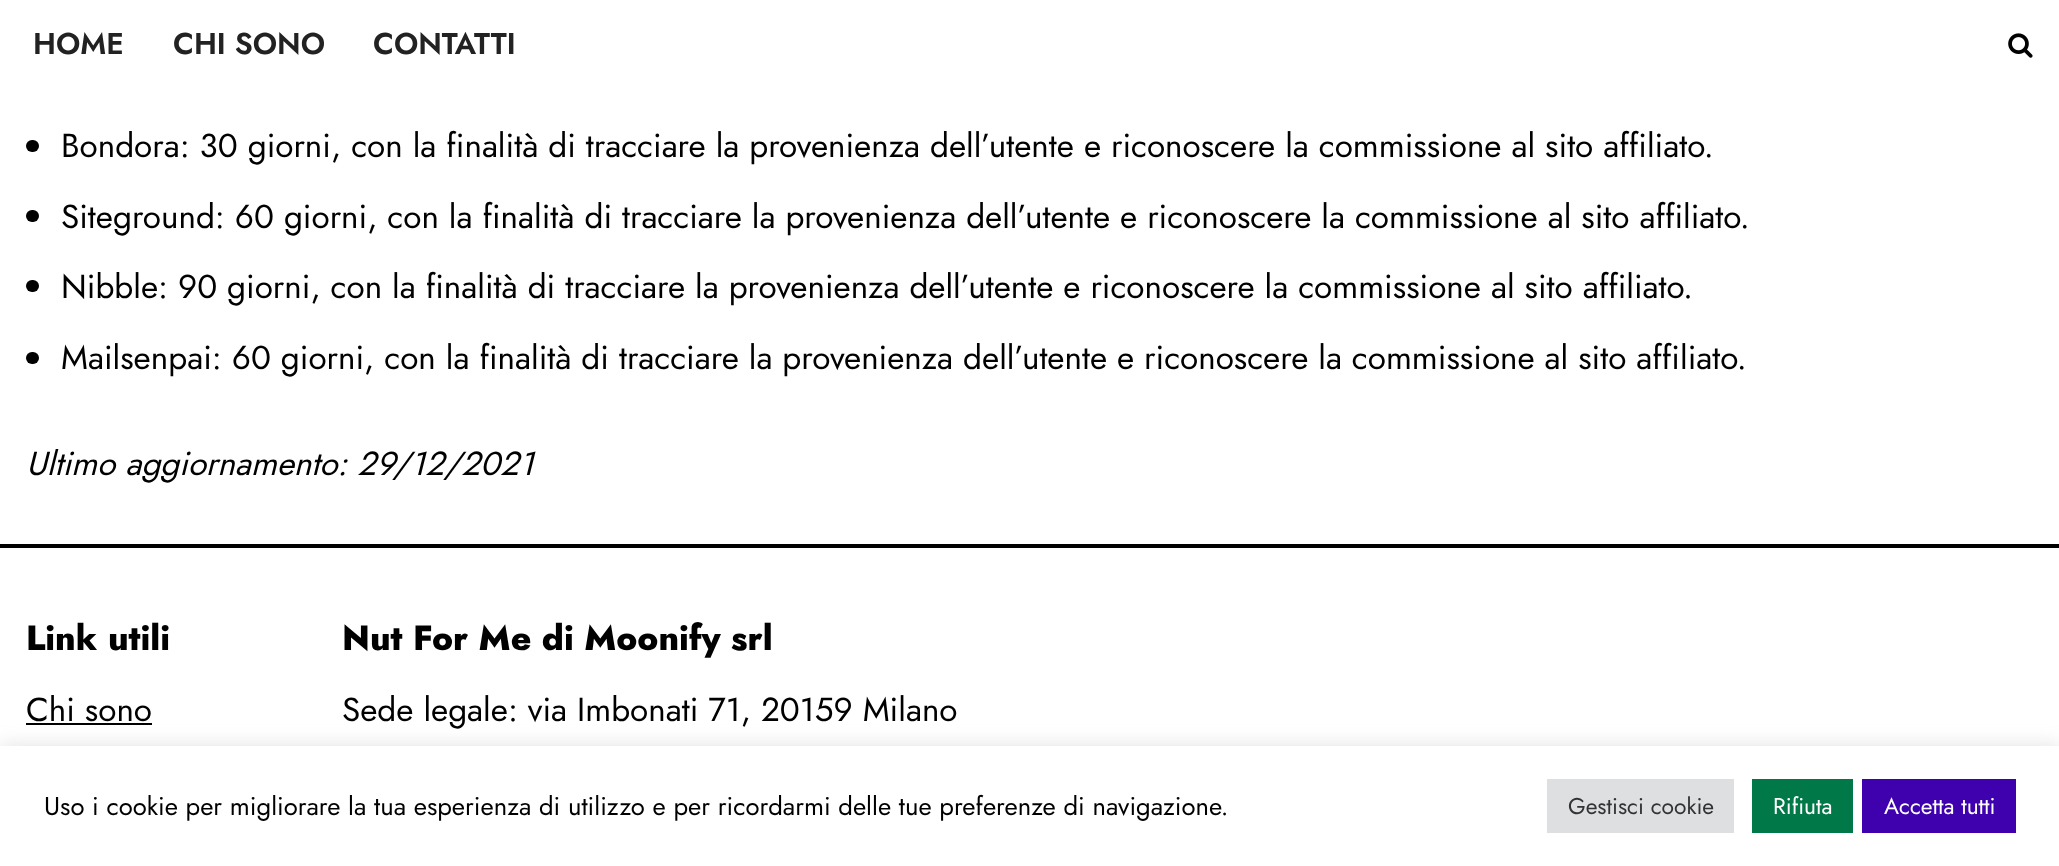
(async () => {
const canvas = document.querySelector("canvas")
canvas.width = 2059
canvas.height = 866
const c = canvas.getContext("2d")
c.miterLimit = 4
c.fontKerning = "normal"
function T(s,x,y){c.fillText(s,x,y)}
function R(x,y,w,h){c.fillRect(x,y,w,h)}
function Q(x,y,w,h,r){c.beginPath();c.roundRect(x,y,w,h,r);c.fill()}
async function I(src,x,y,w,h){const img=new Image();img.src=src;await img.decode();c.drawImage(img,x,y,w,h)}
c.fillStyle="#fff"
R(0,0,2059,866)
c.font="600 30px Jost"
c.fillStyle="#222"
T("HOME",33,54)
T("CHI SONO",173,54)
T("CONTATTI",373,54)
await I("1.png",2008,33,25,25)
c.fillStyle="#000"
Q(26,140,13,12,6)
c.font="33.25px Jost"
T("Bondora: 30 giorni, con la finalità di tracciare la provenienza dell’utente e riconoscere la commissione al sito affiliato.",61,157)
Q(26,210,13,12,6)
T("Siteground: 60 giorni, con la finalità di tracciare la provenienza dell’utente e riconoscere la commissione al sito affiliato.",61,228)
Q(26,280,13,12,6)
T("Nibble: 90 giorni, con la finalità di tracciare la provenienza dell’utente e riconoscere la commissione al sito affiliato.",61,298)
Q(26,352,13,12,6)
T("Mailsenpai: 60 giorni, con la finalità di tracciare la provenienza dell’utente e riconoscere la commissione al sito affiliato.",61,369)
c.font="italic 33.25px Jost"
T("Ultimo aggiornamento: 29/12/2021",26,475)
R(0,544,2059,4)
c.font="800 35px Jost"
T("Link utili",26,650)
c.font="33.25px Jost"
T("Chi sono",26,721)
R(26,723,126,2)
c.font="800 35px Jost"
T("Nut For Me di Moonify srl",342,650)
c.font="33.25px Jost"
T("Sede legale: via Imbonati 71, 20159 Milano",342,721)
c.fillStyle="#acabab4d"
c.filter="blur(9px)"
c.beginPath()
c.rect(0,744,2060,121)
c.fill()
c.filter="none"
c.fillStyle="#fff"
R(0,746,2059,120)
c.font="25.65px Jost"
c.fillStyle="#000"
T("Uso i cookie per migliorare la tua esperienza di utilizzo e per ricordarmi delle tue preferenze di navigazione.",44,815)
c.fillStyle="#dedfe0"
R(1547,779,187,54)
c.font="22.75px Jost"
c.fillStyle="#333"
T("Gestisci cookie",1568,814)
c.fillStyle="#007848"
R(1752,779,101,54)
c.fillStyle="#fff"
T("Rifiuta",1773,814)
c.fillStyle="#3f00ad"
R(1862,779,154,54)
c.fillStyle="#fff"
T("Accetta tutti",1884,814)
})()
